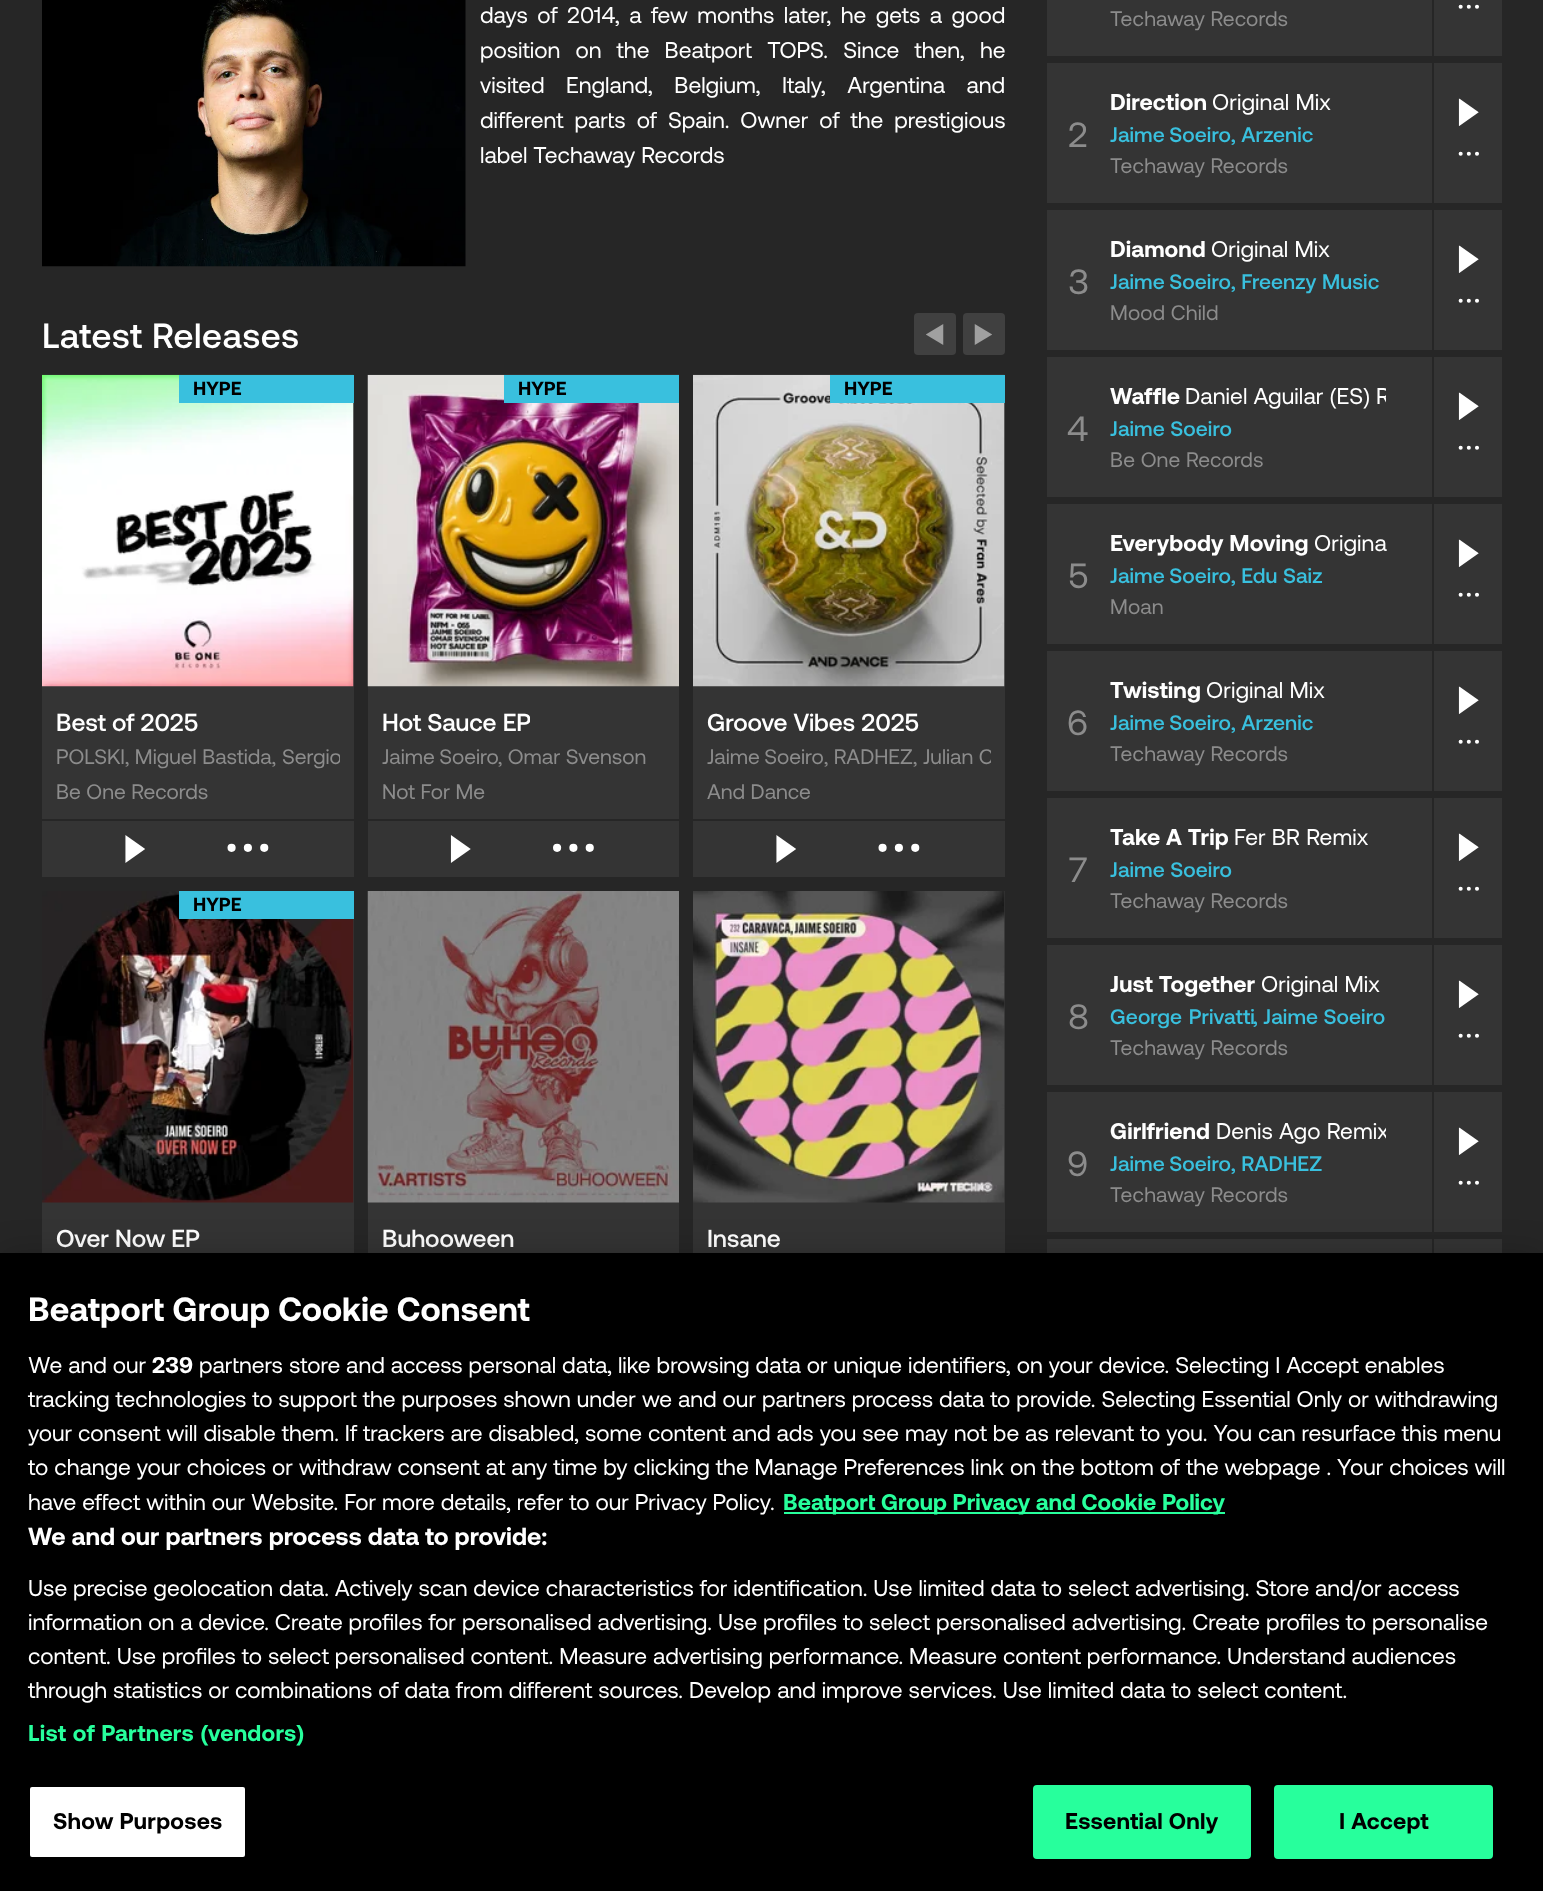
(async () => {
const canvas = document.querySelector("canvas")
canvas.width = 1543
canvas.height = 1891
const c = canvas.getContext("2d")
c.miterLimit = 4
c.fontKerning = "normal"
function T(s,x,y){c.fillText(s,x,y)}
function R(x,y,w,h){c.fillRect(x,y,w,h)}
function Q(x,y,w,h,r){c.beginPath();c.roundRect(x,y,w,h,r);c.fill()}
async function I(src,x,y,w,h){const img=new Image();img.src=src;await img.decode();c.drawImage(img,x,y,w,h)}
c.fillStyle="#262626"
R(0,0,1543,1891)
await I("1.png",42,0,424,267)
c.wordSpacing="3.5px"
c.font="22.75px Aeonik"
c.fillStyle="#fff"
T("days of 2014, a few months later, he gets a good",480,23)
c.wordSpacing="9.25px"
T("position on the Beatport TOPS. Since then, he",480,58)
c.wordSpacing="15.5px"
T("visited England, Belgium, Italy, Argentina and",480,93)
c.wordSpacing="5px"
T("different parts of Spain. Owner of the prestigious",480,128)
c.wordSpacing="0px"
T("label Techaway Records",480,163)
c.letterSpacing="0.5px"
c.font="500 35px Aeonik"
T("Latest Releases",42,348)
c.fillStyle="#404040"
Q(914,313,42,42,4)
await I("2.png",926,324,18,21)
Q(963,313,42,42,4)
await I("3.png",974,324,18,21)
c.fillStyle="#343434"
R(42,403,312,474)
await I("4.png",42,374,312,313)
c.fillStyle="#39c0de"
R(179,375,175,28)
c.letterSpacing="0px"
c.font="bold 19px Aeonik"
c.fillStyle="#000"
T("HYPE",193,395)
c.letterSpacing="-0.1px"
c.font="500 24.5px Aeonik"
c.fillStyle="#fff"
T("Best of 2025",56,731)
c.letterSpacing="0px"
c.font="21px Aeonik"
c.fillStyle="#8c8c8c"
T("POLSKI, Miguel Bastida,",56,764)
c.save()
c.beginPath()
c.rect(56,742,284,28)
c.clip()
T("Sergio",282,764)
c.restore()
T("Be One Records",56,799)
c.fillStyle="#262626"
R(42,819,312,2)
await I("5.png",125,835,20,28)
await I("6.png",227,843,42,9)
c.fillStyle="#343434"
R(368,686,311,191)
await I("7.png",367,374,312,313)
c.fillStyle="#39c0de"
R(504,375,175,28)
c.font="bold 19px Aeonik"
c.fillStyle="#000"
T("HYPE",518,395)
c.save()
c.beginPath()
c.rect(382,700,148,35)
c.clip()
c.letterSpacing="-0.1px"
c.font="500 24.5px Aeonik"
c.fillStyle="#fff"
T("Hot Sauce EP",382,731)
c.restore()
c.wordSpacing="-1px"
c.font="21px Aeonik"
c.fillStyle="#8c8c8c"
T("Jaime Soeiro",382,764)
c.wordSpacing="0px"
T(", Omar Svenson",498,764)
T("Not For Me",382,799)
c.fillStyle="#262626"
R(368,819,311,2)
await I("8.png",450,835,21,28)
await I("9.png",553,843,41,9)
c.fillStyle="#343434"
R(693,403,312,474)
await I("10.png",693,374,312,313)
c.fillStyle="#39c0de"
R(830,375,175,28)
c.font="bold 19px Aeonik"
c.fillStyle="#000"
T("HYPE",844,395)
c.letterSpacing="-0.1px"
c.font="500 24.5px Aeonik"
c.fillStyle="#fff"
T("Groove Vibes 2025",707,731)
c.letterSpacing="0px"
c.wordSpacing="-1px"
c.font="21px Aeonik"
c.fillStyle="#8c8c8c"
T("Jaime Soeiro",707,764)
c.wordSpacing="0px"
T(", RADHEZ,",824,764)
c.save()
c.beginPath()
c.rect(707,742,284,28)
c.clip()
T("Julian C",923,764)
c.restore()
T("And Dance",707,799)
c.fillStyle="#262626"
R(693,819,312,2)
await I("5.png",776,835,20,28)
await I("6.png",878,843,42,9)
c.fillStyle="#343434"
R(42,919,312,334)
await I("11.png",42,891,312,312)
c.fillStyle="#39c0de"
R(179,891,175,28)
c.font="bold 19px Aeonik"
c.fillStyle="#000"
T("HYPE",193,911)
c.letterSpacing="-0.1px"
c.font="500 24.5px Aeonik"
c.fillStyle="#fff"
T("Over Now EP",56,1247)
c.fillStyle="#343434"
R(368,1202,311,51)
await I("12.png",367,891,312,312)
c.fillStyle="#fff"
T("Buhooween",382,1247)
c.fillStyle="#343434"
R(693,891,312,362)
await I("13.png",693,891,312,312)
c.fillStyle="#fff"
T("Insane",707,1247)
c.fillStyle="#343434"
R(1047,0,455,56)
c.letterSpacing="0.1px"
c.font="21px Aeonik"
c.fillStyle="#8c8c8c"
T("Techaway Records",1110,26)
c.fillStyle="#262626"
R(1432,0,2,56)
await I("14.png",1458,4,21,5)
c.fillStyle="#343434"
R(1047,63,455,140)
c.letterSpacing="0px"
c.font="35px Aeonik"
c.fillStyle="#8c8c8c"
T("2",1068,147)
c.letterSpacing="0.1px"
c.font="bold 22.75px Aeonik"
c.fillStyle="#fff"
T("Direction",1110,110)
c.font="22.75px Aeonik"
T("Original Mix",1212,110)
c.wordSpacing="-1px"
c.font="500 21px Aeonik"
c.fillStyle="#39c0de"
T("Jaime Soeiro",1110,142)
c.wordSpacing="0px"
T(", Arzenic",1231,142)
c.font="21px Aeonik"
c.fillStyle="#8c8c8c"
T("Techaway Records",1110,173)
c.fillStyle="#262626"
R(1432,63,2,140)
await I("15.png",1458,98,21,28)
await I("14.png",1458,151,21,5)
c.fillStyle="#343434"
R(1047,210,455,140)
c.letterSpacing="0px"
c.font="35px Aeonik"
c.fillStyle="#8c8c8c"
T("3",1068,294)
c.letterSpacing="0.1px"
c.font="bold 22.75px Aeonik"
c.fillStyle="#fff"
T("Diamond",1110,257)
c.font="22.75px Aeonik"
T("Original Mix",1211,257)
c.wordSpacing="-1px"
c.font="500 21px Aeonik"
c.fillStyle="#39c0de"
T("Jaime Soeiro",1110,289)
c.wordSpacing="0px"
T(", Freenzy Music",1231,289)
c.font="21px Aeonik"
c.fillStyle="#8c8c8c"
T("Mood Child",1110,320)
c.fillStyle="#262626"
R(1432,210,2,140)
await I("15.png",1458,245,21,28)
await I("14.png",1458,298,21,5)
c.fillStyle="#343434"
R(1047,357,455,140)
c.letterSpacing="0px"
c.font="35px Aeonik"
c.fillStyle="#8c8c8c"
T("4",1067,441)
c.letterSpacing="0.1px"
c.font="bold 22.75px Aeonik"
c.fillStyle="#fff"
T("Waffle",1110,404)
c.save()
c.beginPath()
c.rect(1110,378,276,35)
c.clip()
c.font="22.75px Aeonik"
T("Daniel Aguilar (ES) R",1185,404)
c.restore()
c.font="500 21px Aeonik"
c.fillStyle="#39c0de"
T("Jaime Soeiro",1110,436)
c.font="21px Aeonik"
c.fillStyle="#8c8c8c"
T("Be One Records",1110,467)
c.fillStyle="#262626"
R(1432,357,2,140)
await I("15.png",1458,392,21,28)
await I("14.png",1458,445,21,5)
c.fillStyle="#343434"
R(1047,504,455,140)
c.letterSpacing="0px"
c.font="35px Aeonik"
c.fillStyle="#8c8c8c"
T("5",1068,588)
c.letterSpacing="0.1px"
c.font="bold 22.75px Aeonik"
c.fillStyle="#fff"
T("Everybody Moving",1110,551)
c.font="22.75px Aeonik"
T("Origina",1314,551)
c.wordSpacing="-1px"
c.font="500 21px Aeonik"
c.fillStyle="#39c0de"
T("Jaime Soeiro",1110,583)
c.wordSpacing="0px"
T(", Edu Saiz",1231,583)
c.font="21px Aeonik"
c.fillStyle="#8c8c8c"
T("Moan",1110,614)
c.fillStyle="#262626"
R(1432,504,2,140)
await I("15.png",1458,539,21,28)
await I("14.png",1458,592,21,5)
c.fillStyle="#343434"
R(1047,651,455,140)
c.letterSpacing="0px"
c.font="35px Aeonik"
c.fillStyle="#8c8c8c"
T("6",1067,735)
c.letterSpacing="0.1px"
c.font="bold 22.75px Aeonik"
c.fillStyle="#fff"
T("Twisting",1110,698)
c.font="22.75px Aeonik"
T("Original Mix",1206,698)
c.wordSpacing="-1px"
c.font="500 21px Aeonik"
c.fillStyle="#39c0de"
T("Jaime Soeiro",1110,730)
c.wordSpacing="0px"
T(", Arzenic",1231,730)
c.font="21px Aeonik"
c.fillStyle="#8c8c8c"
T("Techaway Records",1110,761)
c.fillStyle="#262626"
R(1432,651,2,140)
await I("15.png",1458,686,21,28)
await I("14.png",1458,739,21,5)
c.fillStyle="#343434"
R(1047,798,455,140)
c.letterSpacing="0px"
c.font="35px Aeonik"
c.fillStyle="#8c8c8c"
T("7",1069,882)
c.letterSpacing="0.1px"
c.font="bold 22.75px Aeonik"
c.fillStyle="#fff"
T("Take A Trip",1110,845)
c.font="22.75px Aeonik"
T("Fer BR Remix",1234,845)
c.font="500 21px Aeonik"
c.fillStyle="#39c0de"
T("Jaime Soeiro",1110,877)
c.font="21px Aeonik"
c.fillStyle="#8c8c8c"
T("Techaway Records",1110,908)
c.fillStyle="#262626"
R(1432,798,2,140)
await I("15.png",1458,833,21,28)
await I("14.png",1458,886,21,5)
c.fillStyle="#343434"
R(1047,945,455,140)
c.letterSpacing="0px"
c.font="35px Aeonik"
c.fillStyle="#8c8c8c"
T("8",1068,1029)
c.letterSpacing="0.1px"
c.font="bold 22.75px Aeonik"
c.fillStyle="#fff"
T("Just Together",1110,992)
c.font="22.75px Aeonik"
T("Original Mix",1261,992)
c.wordSpacing="1px"
c.font="500 21px Aeonik"
c.fillStyle="#39c0de"
T("George Privatti",1110,1024)
c.wordSpacing="0px"
T(", Jaime Soeiro",1253,1024)
c.font="21px Aeonik"
c.fillStyle="#8c8c8c"
T("Techaway Records",1110,1055)
c.fillStyle="#262626"
R(1432,945,2,140)
await I("15.png",1458,980,21,28)
await I("14.png",1458,1033,21,5)
c.fillStyle="#343434"
R(1047,1092,455,140)
c.letterSpacing="0px"
c.font="35px Aeonik"
c.fillStyle="#8c8c8c"
T("9",1067,1176)
c.letterSpacing="0.1px"
c.font="bold 22.75px Aeonik"
c.fillStyle="#fff"
T("Girlfriend",1110,1139)
c.save()
c.beginPath()
c.rect(1110,1113,276,35)
c.clip()
c.font="22.75px Aeonik"
T("Denis Ago Remix",1216,1139)
c.restore()
c.wordSpacing="-1px"
c.font="500 21px Aeonik"
c.fillStyle="#39c0de"
T("Jaime Soeiro",1110,1171)
c.wordSpacing="0px"
T(", RADHEZ",1231,1171)
c.font="21px Aeonik"
c.fillStyle="#8c8c8c"
T("Techaway Records",1110,1202)
c.fillStyle="#262626"
R(1432,1092,2,140)
await I("15.png",1458,1127,21,28)
await I("16.png",1458,1180,21,5)
c.fillStyle="#343434"
R(1047,1239,455,14)
c.fillStyle="#262626"
R(1432,1239,2,14)
c.fillStyle="#00000033"
c.filter="blur(16px)"
c.beginPath()
c.rect(0,1253,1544,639)
c.fill()
c.filter="none"
c.fillStyle="#000"
R(0,1253,1543,638)
c.letterSpacing="0px"
c.font="bold 33.6px Aeonik"
c.fillStyle="#fff"
T("Beatport Group Cookie Consent",28,1321)
c.font="22.75px Aeonik"
T("We and our",28,1373)
c.font="bold 22.75px Aeonik"
T("239",152,1373)
c.font="22.75px Aeonik"
T("partners store and access personal data, like browsing data or unique identifiers, on your device. Selecting I Accept enables",199,1373)
T("tracking technologies to support the purposes shown under we and our partners process data to provide. Selecting Essential Only or withdrawing",28,1407)
T("your consent will disable them. If trackers are disabled, some content and ads you see may not be as relevant to you. You can resurface this menu",28,1441)
T("to change your choices or withdraw consent at any time by clicking the Manage Preferences link on the bottom of the webpage . Your choices will",28,1475)
T("have effect within our Website. For more details, refer to our Privacy Policy.",28,1510)
c.fillStyle="#27ff9c"
R(784,1512,441,2)
c.font="bold 22.75px Aeonik"
T("Beatport Group Privacy and Cookie Policy",783,1510)
c.font="bold 24.6px Aeonik"
c.fillStyle="#fff"
T("We and our partners process data to provide:",28,1545)
c.font="22.75px Aeonik"
T("Use precise geolocation data. Actively scan device characteristics for identification. Use limited data to select advertising. Store and/or access",28,1596)
T("information on a device. Create profiles for personalised advertising. Use profiles to select personalised advertising. Create profiles to personalise",28,1630)
T("content. Use profiles to select personalised content. Measure advertising performance. Measure content performance. Understand audiences",28,1664)
T("through statistics or combinations of data from different sources. Develop and improve services. Use limited data to select content.",28,1698)
c.letterSpacing="0.25px"
c.wordSpacing="0.5px"
c.font="bold 22.75px Aeonik"
c.fillStyle="#27ff9c"
T("List of Partners (vendors)",28,1741)
c.fillStyle="#fff"
c.beginPath()
c.roundRect(29,1786,217,72,3)
c.fill()
c.strokeStyle="#000"
c.lineWidth=2
c.stroke()
c.wordSpacing="0px"
c.fillStyle="#000"
T("Show Purposes",53,1829)
c.fillStyle="#27ff9c"
c.beginPath()
c.roundRect(1034,1786,216,72,3)
c.fill()
c.strokeStyle="#27ff9c"
c.stroke()
c.fillStyle="#000"
T("Essential Only",1065,1829)
c.fillStyle="#27ff9c"
c.beginPath()
c.roundRect(1275,1786,217,72,3)
c.fill()
c.stroke()
c.fillStyle="#000"
T("I Accept",1339,1829)
})()
